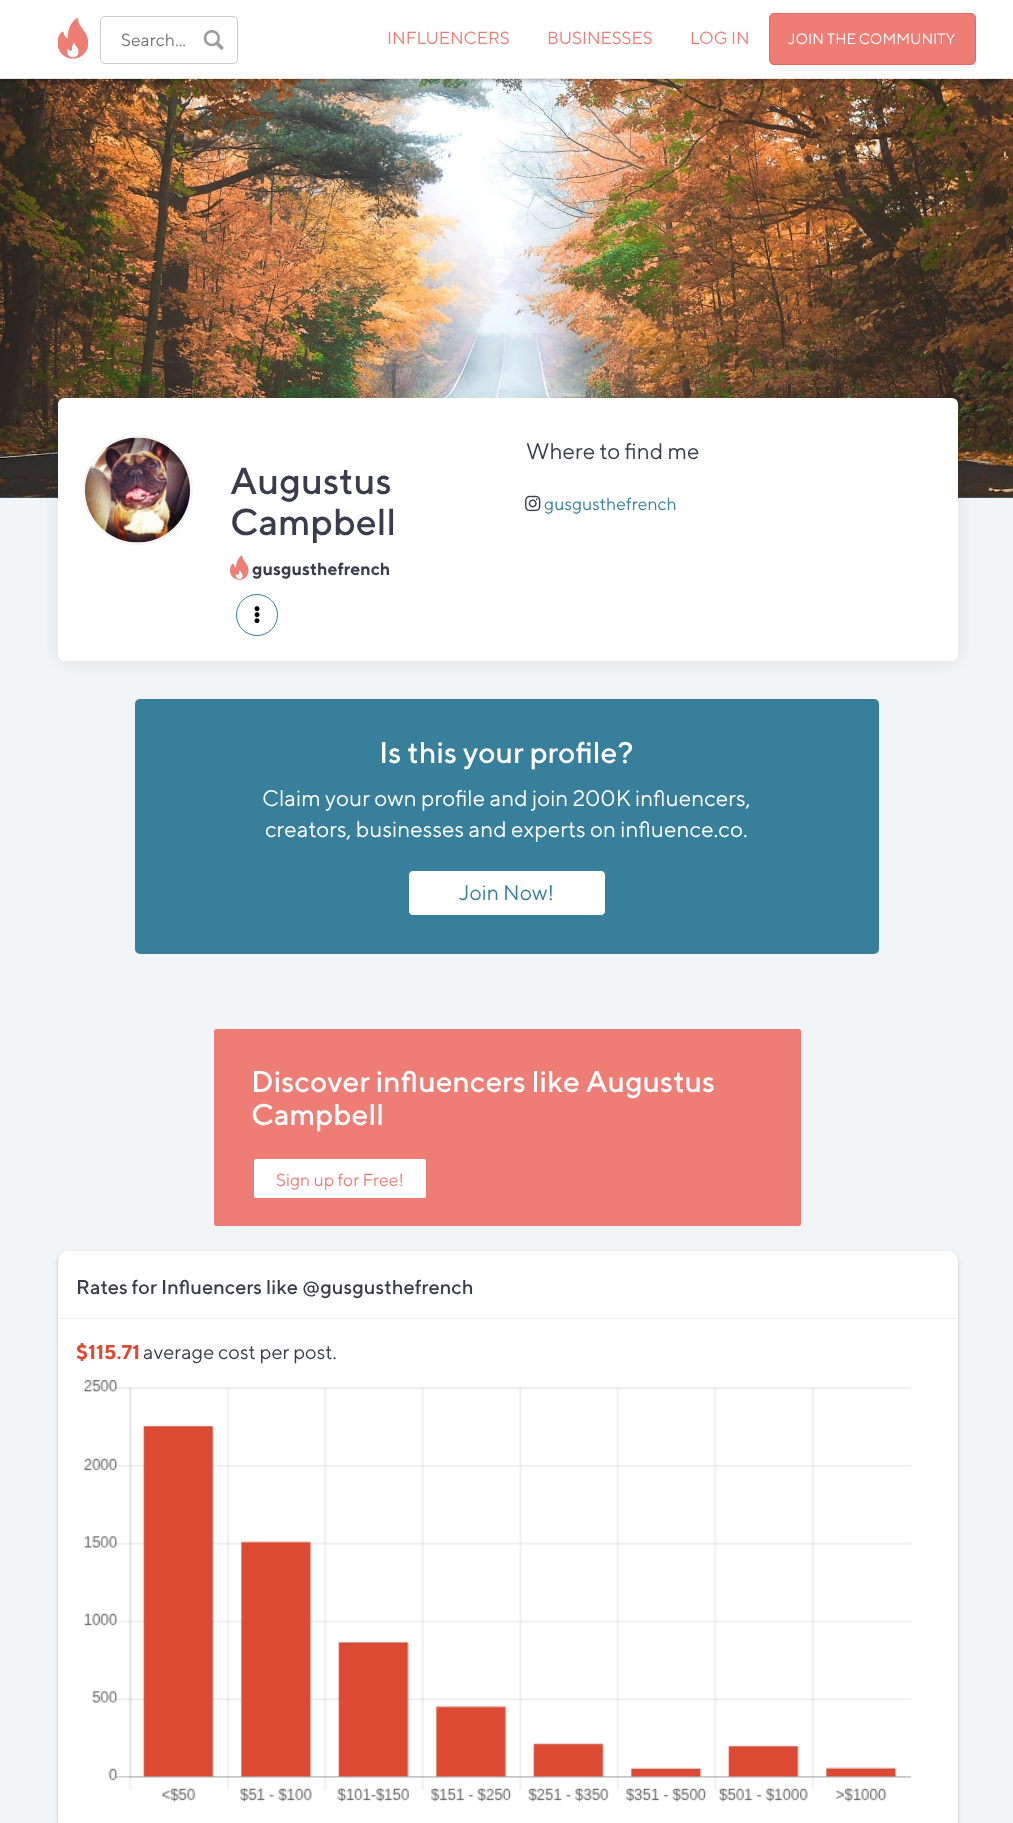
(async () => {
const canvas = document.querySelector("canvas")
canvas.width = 1013
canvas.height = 1823
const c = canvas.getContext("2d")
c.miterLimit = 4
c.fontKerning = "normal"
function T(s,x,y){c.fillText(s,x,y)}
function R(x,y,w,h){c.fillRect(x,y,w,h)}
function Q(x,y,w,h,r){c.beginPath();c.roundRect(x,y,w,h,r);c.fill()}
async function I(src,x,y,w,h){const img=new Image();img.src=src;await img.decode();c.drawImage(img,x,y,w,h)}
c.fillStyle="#f2f5f7"
R(0,0,1013,1823)
c.fillStyle="#457ba1"
R(0,497,1013,1)
await I("3.png",0,79,1013,419)
c.fillStyle="#0000004d"
c.filter="blur(2px)"
c.beginPath()
c.rect(0,1,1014,79)
c.fill()
c.filter="none"
c.fillStyle="#fff"
R(0,0,1013,78)
c.fillStyle="#e7e7e7"
R(0,78,1013,1)
await I("1.png",58,18,30,41)
await I("2.png",203,30,21,20)
c.beginPath()
c.roundRect(100.5,16.5,137,47,4.5)
c.strokeStyle="#ccc"
c.stroke()
c.font="17.5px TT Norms"
c.fillStyle="#757575"
T("Search...",121,46)
c.fillStyle="#ee7d76"
T("INFLUENCERS",387,44)
T("BUSINESSES",547,44)
T("LOG IN",690,44)
c.beginPath()
c.roundRect(769.5,13.5,206,51,4.5)
c.fill()
c.strokeStyle="#eb675f"
c.stroke()
c.font="15px TT Norms"
c.fillStyle="#fff"
T("JOIN THE COMMUNITY",788,44)
c.fillStyle="#00000014"
c.filter="blur(9.5px)"
c.beginPath()
c.roundRect(58,398,900,263,6)
c.fill()
c.filter="none"
c.fillStyle="#fff"
Q(58,398,900,263,6)
c.beginPath()
c.arc(138,490,53.5,0,7)
c.strokeStyle="#f5f5f6"
c.lineWidth=3
c.stroke()
await I("4.png",85,437,105,106)
c.font="500 37.5px TT Norms"
c.fillStyle="#3b3c4b"
T("Augustus",230,494)
T("Campbell",230,535)
await I("5.png",230,555,19,25)
c.font="bold 17.5px TT Norms"
T("gusgusthefrench",252,575)
c.beginPath()
c.arc(257,615,20.5,0,7)
c.strokeStyle="#387f9b"
c.lineWidth=1
c.stroke()
await I("6.png",254,606,6,18)
c.font="22.5px TT Norms"
T("Where to find me",526,459)
await I("7.png",525,495,16,17)
c.font="17.5px TT Norms"
c.fillStyle="#387f9b"
T("gusgusthefrench",544,510)
Q(135,699,744,255,5)
c.font="500 30px TT Norms"
c.fillStyle="#fff"
T("Is this your profile?",379,763)
c.font="22.5px TT Norms"
T("Claim your own profile and join 200K influencers,",262,806)
T("creators, businesses and experts on influence.co.",265,837)
c.beginPath()
c.roundRect(408.5,870.5,197,45,4.5)
c.fill()
c.stroke()
c.font="21.25px TT Norms"
c.fillStyle="#387f9b"
T("Join Now!",459,900)
c.fillStyle="#ee7d76"
Q(214,1029,587,197,2.5)
c.font="500 30px TT Norms"
c.fillStyle="#fff"
T("Discover influencers like Augustus",251,1092)
T("Campbell",251,1125)
c.beginPath()
c.roundRect(252.5,1157.5,175,42,3.5)
c.fill()
c.strokeStyle="#ee7d76"
c.lineWidth=3
c.stroke()
c.font="17.5px TT Norms"
c.fillStyle="#ee7d76"
T("Sign up for Free!",276,1186)
c.fillStyle="#00000033"
c.filter="blur(2px)"
c.beginPath()
c.roundRect(58,1253,900,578,10)
c.fill()
c.filter="none"
c.fillStyle="#fff"
Q(58,1251,900,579,10)
c.fillStyle="#eee"
R(58,1318,900,1)
c.font="500 20px TT Norms"
c.fillStyle="#3b3c4b"
T("Rates for Influencers like @gusgusthefrench",76,1294)
c.font="bold 20px TT Norms"
c.fillStyle="#dc4a33"
T("$115.71",76,1359)
c.font="20px TT Norms"
c.fillStyle="#3b3c4b"
T("average cost per post.",143,1359)
await I("8.png",83,1380,829,422)
})()
